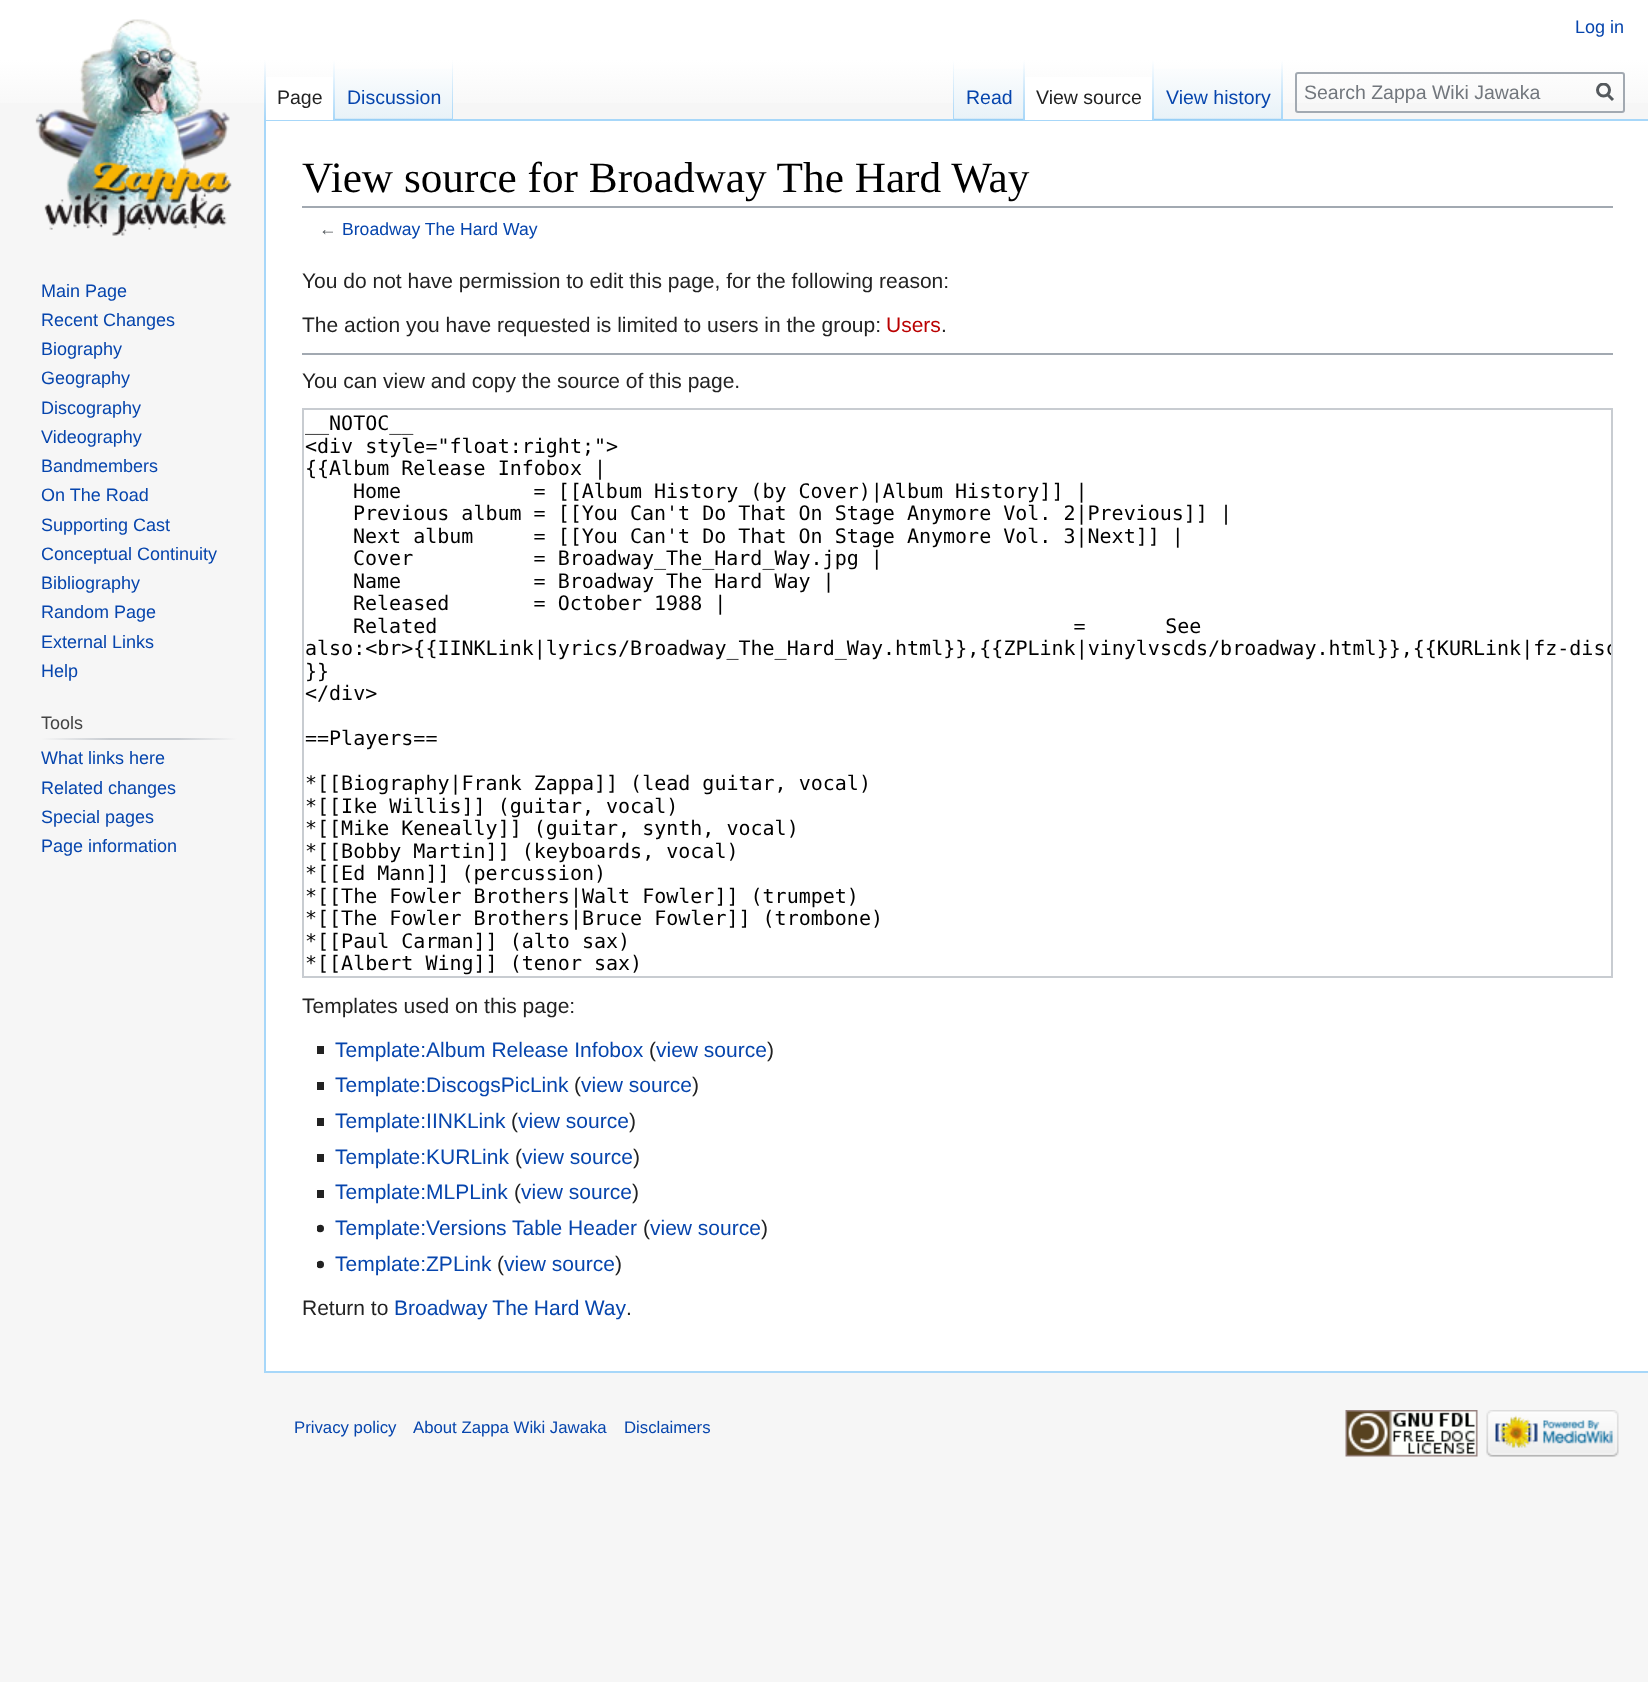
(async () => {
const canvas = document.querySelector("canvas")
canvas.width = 1648
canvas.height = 1682
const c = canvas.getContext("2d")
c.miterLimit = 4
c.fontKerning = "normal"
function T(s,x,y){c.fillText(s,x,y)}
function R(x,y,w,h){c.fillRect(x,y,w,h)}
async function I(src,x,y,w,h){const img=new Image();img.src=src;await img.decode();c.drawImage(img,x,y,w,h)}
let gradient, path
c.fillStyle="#f6f6f6"
R(0,0,1648,1682)
gradient = c.createLinearGradient(824,0,824,120)
gradient.addColorStop(.5,"#fff")
gradient.addColorStop(1,"#f6f6f6")
c.fillStyle = gradient
R(0,0,1648,103)
c.font="18px Liberation Sans"
c.fillStyle="#0645ad"
T("Log in",1575,33)
c.fillStyle="#a7d7f9"
R(264,119,1384,2)
R(264,1371,1384,2)
R(264,119,2,1254)
gradient = c.createLinearGradient(265,60,265,120)
gradient.addColorStop(0,"#a7d7f900")
gradient.addColorStop(1,"#a7d7f9")
c.fillStyle = gradient
R(264,60,2,60)
c.fillStyle="#fff"
R(266,77,67,43)
gradient = c.createLinearGradient(334,60,334,120)
gradient.addColorStop(0,"#fff")
gradient.addColorStop(1,"#a7d7f9")
c.fillStyle = gradient
R(333,60,2,60)
c.font="19.5px Liberation Sans"
c.fillStyle="#222"
T("Page",277,104)
gradient = c.createLinearGradient(394,120,394,60)
gradient.addColorStop(0,"#77c1f6")
gradient.addColorStop(.03,"#e8f2f8")
gradient.addColorStop(1,"#fff")
c.fillStyle = gradient
R(335,69,118,51)
gradient = c.createLinearGradient(452,60,452,120)
gradient.addColorStop(0,"#a7d7f900")
gradient.addColorStop(1,"#a7d7f9")
c.fillStyle = gradient
R(452,60,1,60)
c.fillStyle="#0645ad"
T("Discussion",347,104)
gradient = c.createLinearGradient(953,60,953,120)
gradient.addColorStop(0,"#a7d7f900")
gradient.addColorStop(1,"#a7d7f9")
c.fillStyle = gradient
R(953,60,1,60)
gradient = c.createLinearGradient(989,120,989,60)
gradient.addColorStop(0,"#77c1f6")
gradient.addColorStop(.03,"#e8f2f8")
gradient.addColorStop(1,"#fff")
c.fillStyle = gradient
R(954,69,71,51)
gradient = c.createLinearGradient(1024,60,1024,120)
gradient.addColorStop(0,"#a7d7f900")
gradient.addColorStop(1,"#a7d7f9")
c.fillStyle = gradient
R(1023,60,2,60)
c.fillStyle="#0645ad"
T("Read",966,104)
c.fillStyle="#fff"
R(1025,77,127,43)
gradient = c.createLinearGradient(1153,60,1153,120)
gradient.addColorStop(0,"#fff")
gradient.addColorStop(1,"#a7d7f9")
c.fillStyle = gradient
R(1152,60,2,60)
c.fillStyle="#222"
T("View source",1036,104)
gradient = c.createLinearGradient(1218,120,1218,60)
gradient.addColorStop(0,"#77c1f6")
gradient.addColorStop(.03,"#e8f2f8")
gradient.addColorStop(1,"#fff")
c.fillStyle = gradient
R(1154,69,129,51)
gradient = c.createLinearGradient(1282,60,1282,120)
gradient.addColorStop(0,"#a7d7f900")
gradient.addColorStop(1,"#a7d7f9")
c.fillStyle = gradient
R(1281,60,2,60)
c.fillStyle="#0645ad"
T("View history",1166,104)
c.beginPath()
c.roundRect(1296,73,328,39,2)
c.strokeStyle="#a2a9b1"
c.lineWidth=2
c.stroke()
c.fillStyle="#72777d"
T("Search Zappa Wiki Jawaka",1304,99)
path = new Path2D("M1613 100l-6-6")
c.strokeStyle="#54595d"
c.lineWidth=3
c.stroke(path)
c.save()
c.beginPath()
c.rect(1596,83,18,19)
c.clip()
c.beginPath()
c.arc(1603.5,90,6,0,7)
c.stroke()
c.restore()
await I("1.png",35,19,197,217)
c.font="18px Liberation Sans"
c.fillStyle="#0645ad"
T("Main Page",41,297)
T("Recent Changes",41,326)
T("Biography",41,355)
T("Geography",41,384)
T("Discography",41,414)
T("Videography",41,443)
T("Bandmembers",41,472)
T("On The Road",41,501)
T("Supporting Cast",41,531)
T("Conceptual Continuity",41,560)
T("Bibliography",41,589)
T("Random Page",41,618)
T("External Links",41,648)
T("Help",41,677)
c.fillStyle="#444"
T("Tools",41,729)
gradient = c.createLinearGradient(41,739,237,739)
gradient.addColorStop(0,"#f6f6f6")
gradient.addColorStop(.35,"#c8ccd1")
gradient.addColorStop(.7,"#c8ccd1")
gradient.addColorStop(1,"#f6f6f6")
c.fillStyle = gradient
R(41,738,196,2)
c.fillStyle="#0645ad"
T("What links here",41,764)
T("Related changes",41,794)
T("Special pages",41,823)
T("Page information",41,852)
c.fillStyle="#fff"
R(266,121,1382,1250)
c.fillStyle="#a2a9b1"
R(302,206,1311,2)
c.font="43.25px Liberation Serif"
c.fillStyle="#000"
T("View source for Broadway The Hard Way",302,192)
c.font="17.6px Liberation Sans"
c.fillStyle="#54595d"
T("←",319,235)
c.fillStyle="#0645ad"
T("Broadway The Hard Way",342,235)
c.font="21px Liberation Sans"
c.fillStyle="#222"
T("You do not have permission to edit this page, for the following reason:",302,288)
T("The action you have requested is limited to users in the group:",302,332)
c.fillStyle="#ba0000"
T("Users",886,332)
c.fillStyle="#222"
T(".",941,332)
c.fillStyle="#a2a9b1"
R(302,353,1311,2)
c.fillStyle="#222"
T("You can view and copy the source of this page.",302,388)
c.strokeStyle="#c8ccd1"
c.lineWidth=2
c.strokeRect(303,409,1309,568)
c.font="20px DejaVu Sans Mono"
c.fillStyle="#000"
T("__NOTOC__",305,430)
T("<div style=\"float:right;\">",305,453)
T("{{Album Release Infobox |",305,475)
T("Home           = [[Album History (by Cover)|Album History]] |",353,498)
T("Previous album = [[You Can't Do That On Stage Anymore Vol. 2|Previous]] |",353,520)
T("Next album     = [[You Can't Do That On Stage Anymore Vol. 3|Next]] |",353,543)
T("Cover          = Broadway_The_Hard_Way.jpg |",353,565)
T("Name           = Broadway The Hard Way |",353,588)
T("Released       = October 1988 |",353,610)
c.wordSpacing="67.5px"
T("Related        = See",353,633)
c.save()
c.beginPath()
c.rect(303,410,1308,567)
c.clip()
c.wordSpacing="0px"
T("also:<br>{{IINKLink|lyrics/Broadway_The_Hard_Way.html}},{{ZPLink|vinylvscds/broadway.html}},{{KURLink|fz-disc",305,655)
c.restore()
c.wordSpacing="0px"
T("}}",305,678)
T("<\/div>",305,700)
T("==Players==",305,745)
T("*[[Biography|Frank Zappa]] (lead guitar, vocal)",305,790)
T("*[[Ike Willis]] (guitar, vocal)",305,813)
T("*[[Mike Keneally]] (guitar, synth, vocal)",305,835)
T("*[[Bobby Martin]] (keyboards, vocal)",305,858)
T("*[[Ed Mann]] (percussion)",305,880)
T("*[[The Fowler Brothers|Walt Fowler]] (trumpet)",305,903)
T("*[[The Fowler Brothers|Bruce Fowler]] (trombone)",305,925)
T("*[[Paul Carman]] (alto sax)",305,948)
T("*[[Albert Wing]] (tenor sax)",305,970)
c.font="21px Liberation Sans"
c.fillStyle="#222"
T("Templates used on this page:",302,1013)
R(317,1046,7,8)
c.fillStyle="#0645ad"
T("Template:Album Release Infobox",335,1057)
c.fillStyle="#222"
T("(",649,1057)
c.fillStyle="#0645ad"
T("view source",656,1057)
c.fillStyle="#222"
T(")",767,1057)
R(317,1082,7,8)
c.fillStyle="#0645ad"
T("Template:DiscogsPicLink",335,1092)
c.fillStyle="#222"
T("(",574,1092)
c.fillStyle="#0645ad"
T("view source",581,1092)
c.fillStyle="#222"
T(")",692,1092)
R(317,1118,7,8)
c.fillStyle="#0645ad"
T("Template:IINKLink",335,1128)
c.fillStyle="#222"
T("(",511,1128)
c.fillStyle="#0645ad"
T("view source",518,1128)
c.fillStyle="#222"
T(")",629,1128)
R(317,1154,7,8)
c.fillStyle="#0645ad"
T("Template:KURLink",335,1164)
c.fillStyle="#222"
T("(",515,1164)
c.fillStyle="#0645ad"
T("view source",522,1164)
c.fillStyle="#222"
T(")",633,1164)
R(317,1190,7,8)
c.fillStyle="#0645ad"
T("Template:MLPLink",335,1199)
c.fillStyle="#222"
T("(",514,1199)
c.fillStyle="#0645ad"
T("view source",521,1199)
c.fillStyle="#222"
T(")",632,1199)
await I("2.png",317,1224,7,9)
c.fillStyle="#0645ad"
T("Template:Versions Table Header",335,1235)
c.fillStyle="#222"
T("(",643,1235)
c.fillStyle="#0645ad"
T("view source",650,1235)
c.fillStyle="#222"
T(")",761,1235)
await I("2.png",317,1260,7,9)
c.fillStyle="#0645ad"
T("Template:ZPLink",335,1271)
c.fillStyle="#222"
T("(",497,1271)
c.fillStyle="#0645ad"
T("view source",504,1271)
c.fillStyle="#222"
T(")",615,1271)
T("Return to",302,1315)
c.wordSpacing="-0.5px"
c.fillStyle="#0645ad"
T("Broadway The Hard Way",394,1315)
c.wordSpacing="0px"
c.fillStyle="#222"
T(".",626,1315)
c.font="16.75px Liberation Sans"
c.fillStyle="#0645ad"
T("Privacy policy",294,1433)
T("About Zappa Wiki Jawaka",413,1433)
T("Disclaimers",624,1433)
await I("3.png",1345,1410,133,47)
await I("4.png",1486,1410,133,47)
})()
